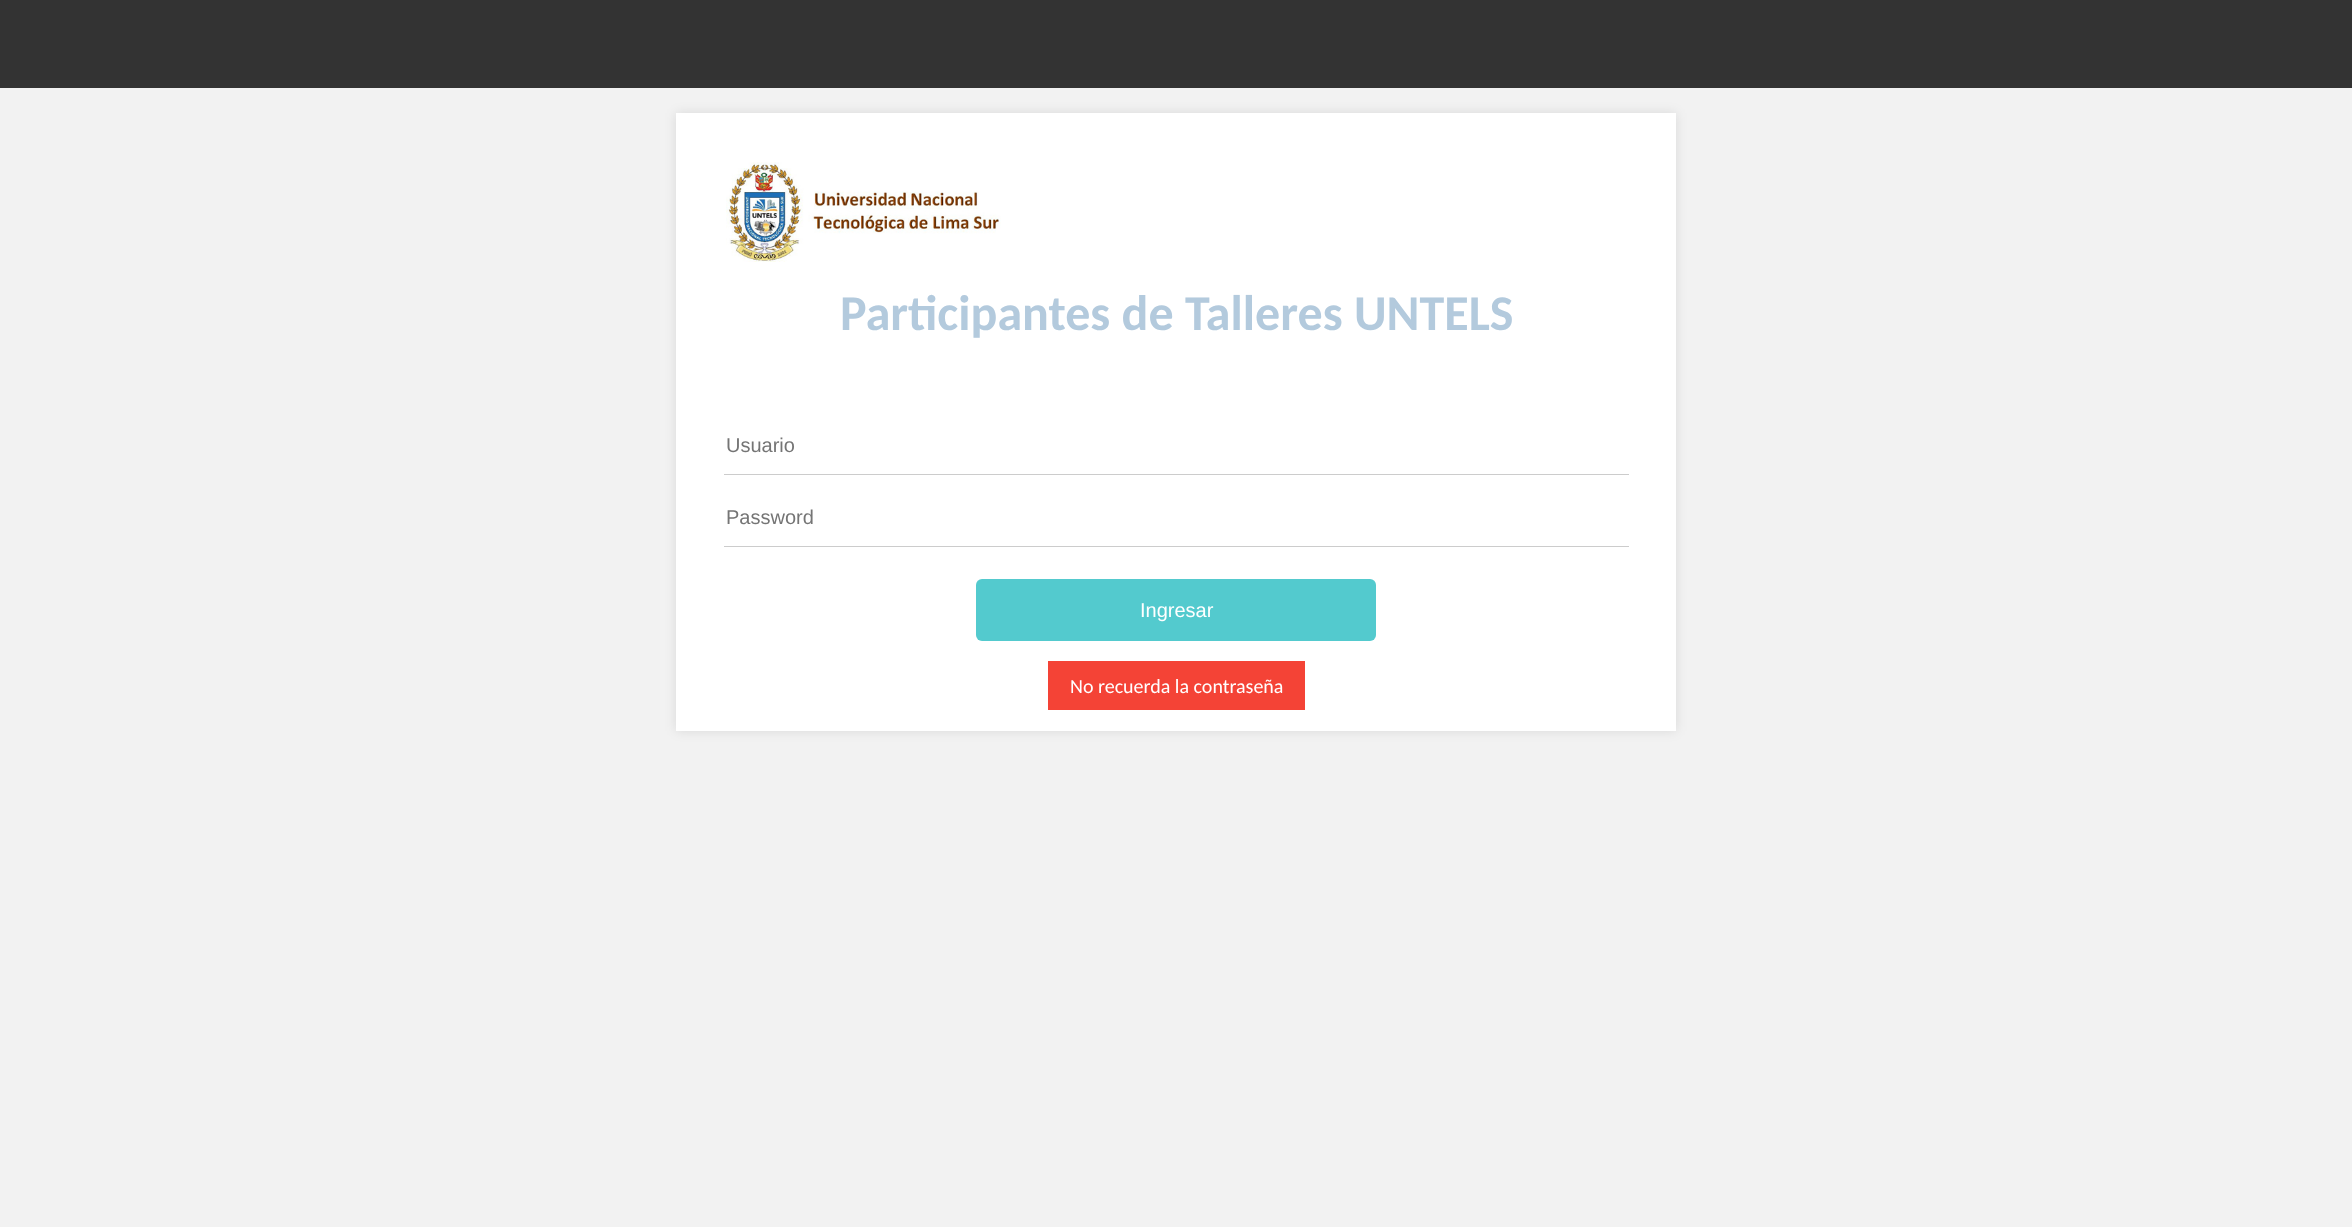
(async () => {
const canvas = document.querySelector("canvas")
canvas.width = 2352
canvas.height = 1227
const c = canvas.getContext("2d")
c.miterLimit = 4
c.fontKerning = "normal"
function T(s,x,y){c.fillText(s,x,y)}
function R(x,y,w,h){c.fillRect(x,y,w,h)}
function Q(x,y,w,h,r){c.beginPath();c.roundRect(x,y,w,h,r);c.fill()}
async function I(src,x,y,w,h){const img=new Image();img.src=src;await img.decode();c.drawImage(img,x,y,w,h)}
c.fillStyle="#f2f2f2"
R(0,0,2352,1227)
c.fillStyle="#333"
R(0,0,2352,88)
c.fillStyle="#0000001a"
c.filter="blur(6px)"
c.beginPath()
c.rect(676,113,1000,618)
c.fill()
c.filter="none"
c.fillStyle="#fff"
R(676,113,1000,618)
await I("1.png",726,162,275,100)
c.font="bold 50px Carlito"
c.fillStyle="#b3cadd"
T("Participantes de Talleres UNTELS",840,330)
c.fillStyle="#ccc"
R(724,474,905,1)
c.font="20px Liberation Sans"
c.fillStyle="#757575"
T("Usuario",726,452)
c.fillStyle="#ccc"
R(724,546,905,1)
c.fillStyle="#757575"
T("Password",726,524)
c.fillStyle="#53cace"
Q(976,579,400,62,6)
c.fillStyle="#fff"
T("Ingresar",1140,617)
c.fillStyle="#f44336"
R(1048,661,257,49)
c.font="20px Carlito"
c.fillStyle="#fff"
T("No recuerda la contraseña",1070,693)
})()
